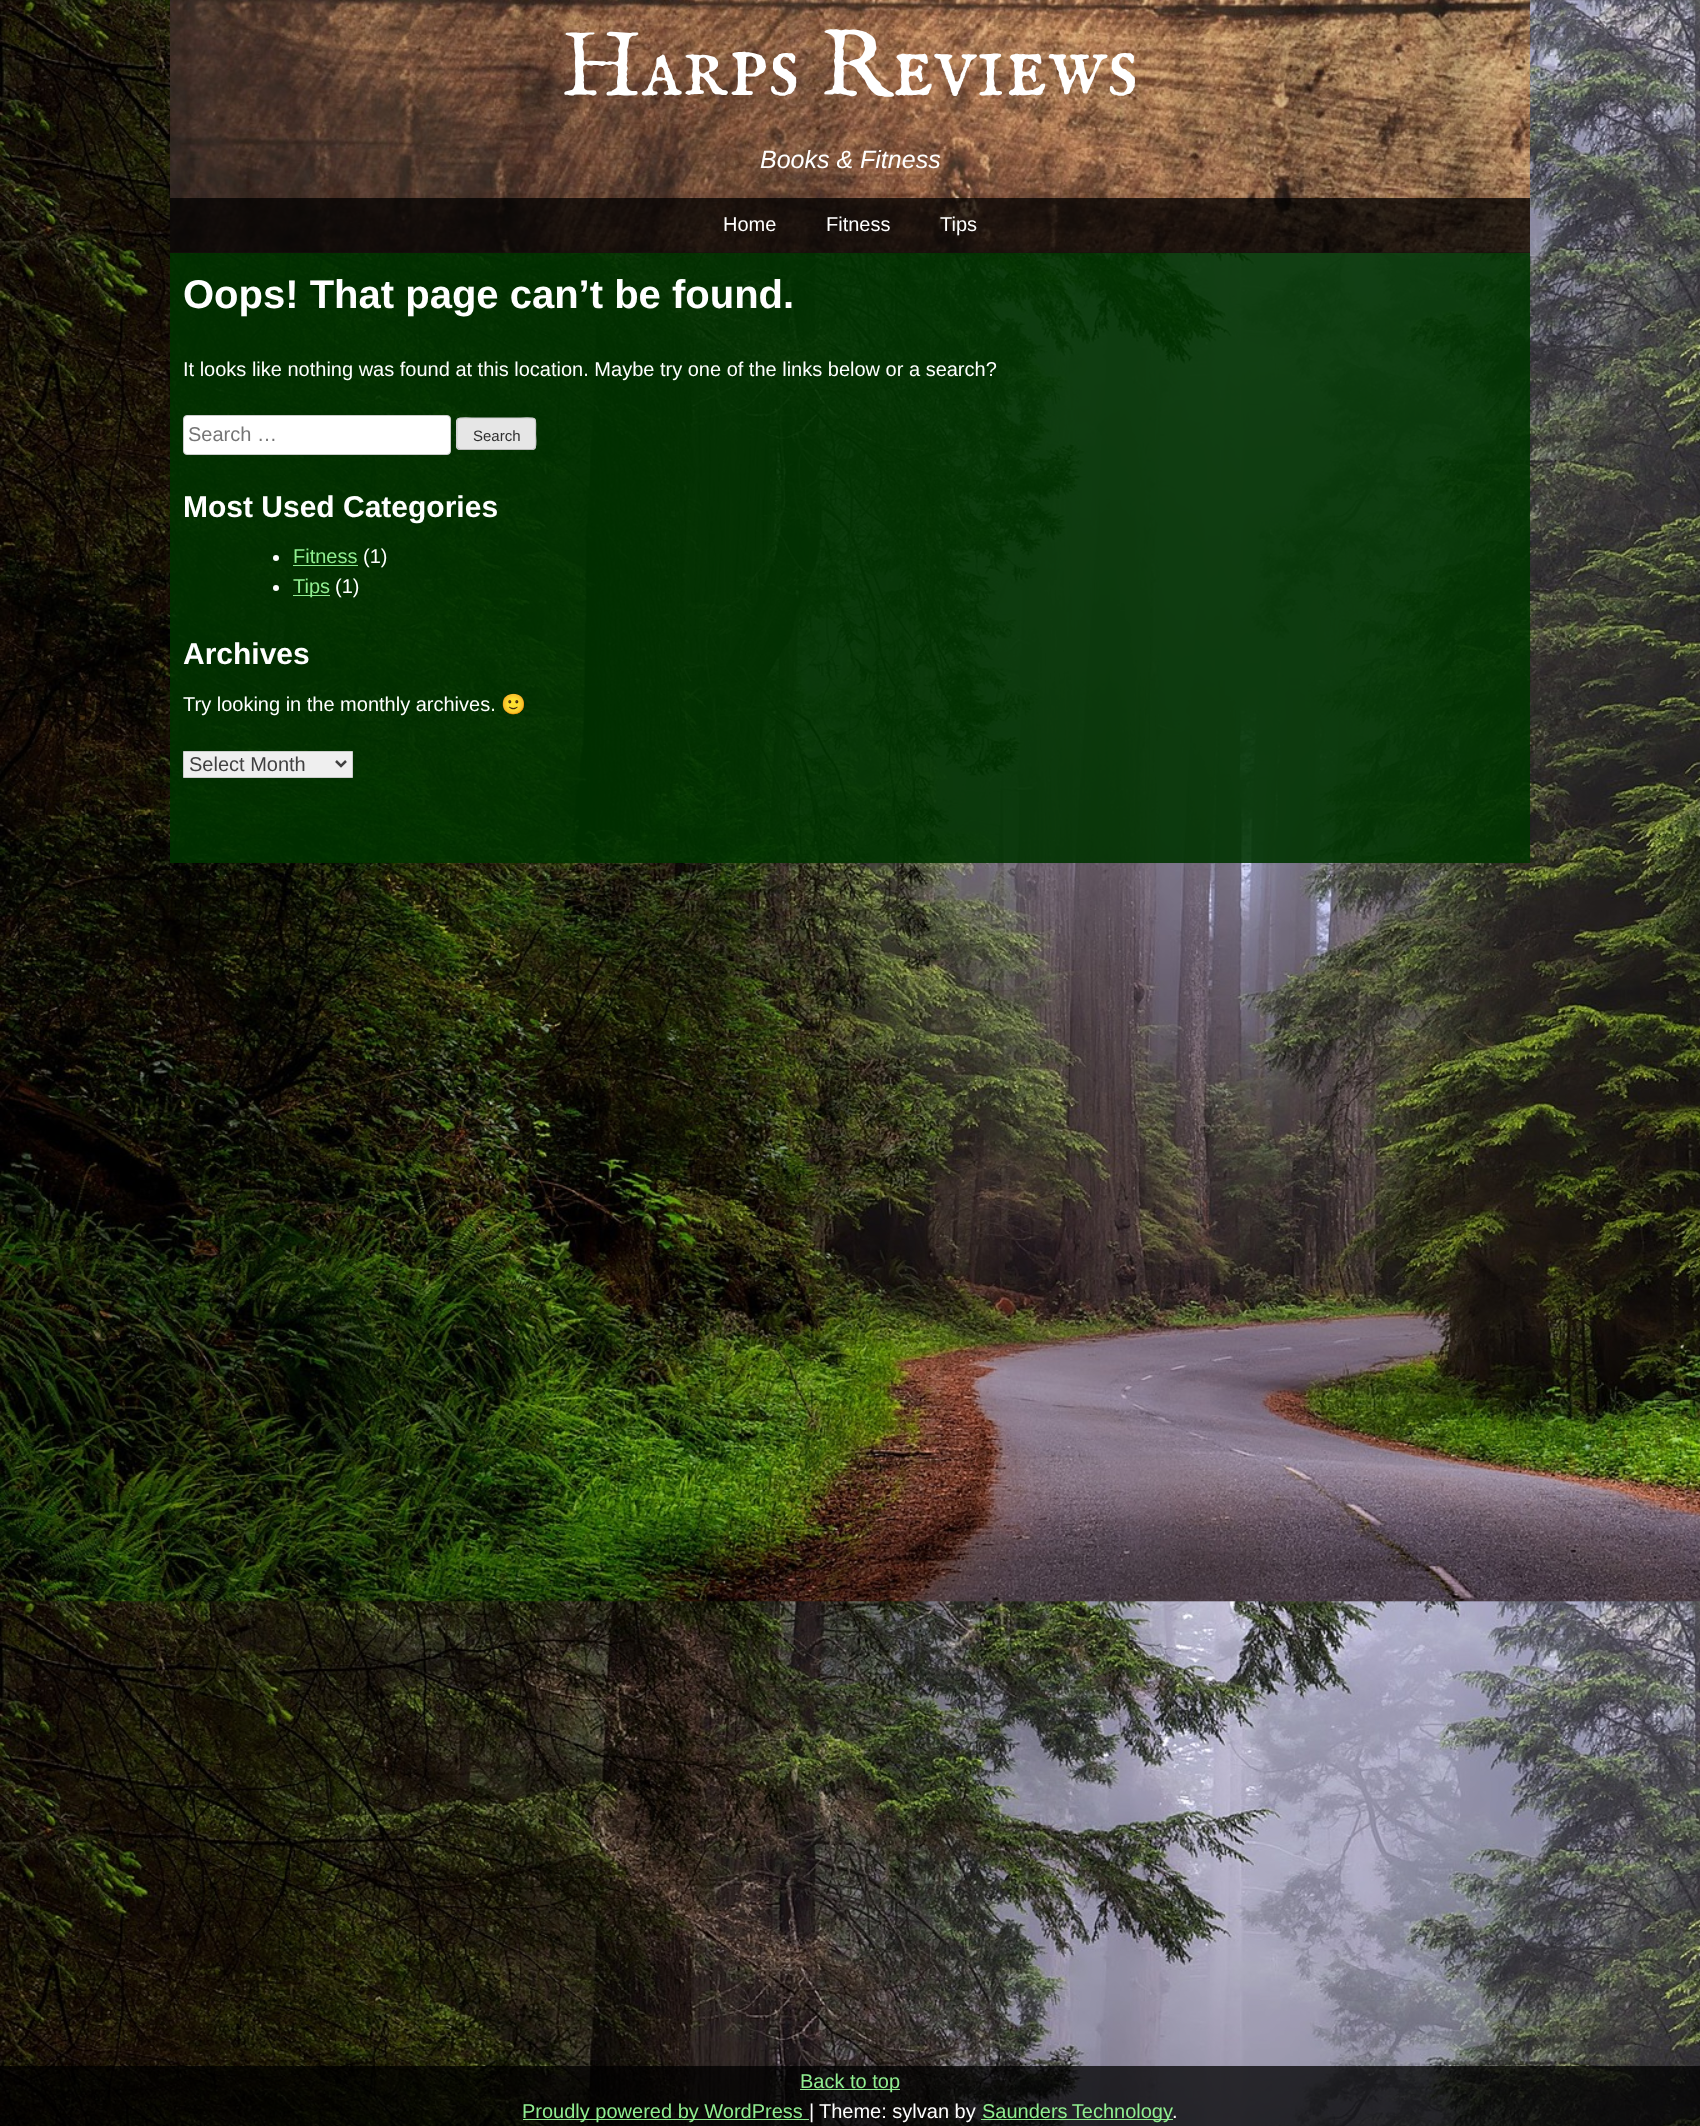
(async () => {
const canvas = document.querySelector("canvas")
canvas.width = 1700
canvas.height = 2126
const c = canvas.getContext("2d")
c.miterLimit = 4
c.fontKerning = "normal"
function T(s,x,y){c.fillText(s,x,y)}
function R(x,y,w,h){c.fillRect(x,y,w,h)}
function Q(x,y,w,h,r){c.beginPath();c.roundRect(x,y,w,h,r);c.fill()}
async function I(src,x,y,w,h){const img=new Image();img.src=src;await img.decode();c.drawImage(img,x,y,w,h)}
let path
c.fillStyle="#fff"
R(0,0,1700,2126)
await I("1.png",0,0,1700,2126)
c.fillStyle="#5d4231"
R(170,252,1360,1)
await I("2.png",170,0,1360,253)
c.font="93.75px IM FELL English SC"
c.fillStyle="#fff"
T("Harps Reviews",561,95)
c.font="italic 25px Liberation Sans"
T("Books & Fitness",760,168)
c.fillStyle="#000000bf"
R(170,198,1360,55)
c.font="20px Liberation Sans"
c.fillStyle="#fff"
T("Home",723,231)
T("Fitness",826,231)
T("Tips",940,231)
c.fillStyle="#003300e6"
R(170,253,1360,610)
c.font="bold 40px Liberation Sans"
c.fillStyle="#fff"
T("Oops! That page can’t be found.",183,308)
c.font="20px Liberation Sans"
T("It looks like nothing was found at this location. Maybe try one of the links below or a search?",183,376)
c.beginPath()
c.roundRect(183.5,415.5,267,39,3.5)
c.fill()
c.strokeStyle="#ccc"
c.stroke()
c.fillStyle="#757575"
T("Search …",188,441)
c.fillStyle="#e6e6e6"
Q(456,418,80,32,4)
path = new Path2D("M534.5 448.5l-1.5 1h-73.5l-1.5-1")
c.strokeStyle="#bbb"
c.lineWidth=1.2
c.stroke(path)
path = new Path2D("M458 448.5c-2.5-2-1-12-1-14.5c0-18.5-3-16 15-16h48.5c18 0 15-2.5 15 16c0 2.5 1.5 12.5-1 14.5")
c.strokeStyle="#ccc"
c.stroke(path)
c.font="15px Liberation Sans"
c.fillStyle="#2e2e2e"
T("Search",473,441)
c.font="bold 30px Liberation Sans"
c.fillStyle="#fff"
T("Most Used Categories",183,517)
c.beginPath()
c.arc(276,558,3,0,7)
c.fill()
c.font="20px Liberation Sans"
c.fillStyle="#90ee90"
T("Fitness",293,563)
R(293,565,65,1)
c.fillStyle="#fff"
T("(1)",363,563)
c.beginPath()
c.arc(276,588,3,0,7)
c.fill()
c.fillStyle="#90ee90"
R(293,595,37,1)
T("Tips",293,593)
c.fillStyle="#fff"
T("(1)",335,593)
c.font="bold 30px Liberation Sans"
T("Archives",183,664)
c.font="20px Liberation Sans"
T("Try looking in the monthly archives.",183,711)
c.font="20px Noto Color Emoji"
T("🙂",501,711)
c.fillStyle="#efefef"
c.beginPath()
c.rect(183.5,751.5,169,26)
c.fill()
c.lineWidth=1
c.stroke()
path = new Path2D("M336 761l5 5l5-5")
c.strokeStyle="#404040"
c.lineWidth=2.5
c.stroke(path)
c.font="20px Liberation Sans"
c.fillStyle="#404040"
T("Select Month",189,771)
c.fillStyle="#000000bf"
R(0,2066,1700,60)
c.fillStyle="#90ee90"
R(800,2089,100,1)
T("Back to top",800,2088)
R(523,2119,286,1)
T("Proudly powered by WordPress",522,2118)
c.fillStyle="#fff"
T("|",809,2118)
T("Theme: sylvan by",819,2118)
c.fillStyle="#90ee90"
R(981,2119,192,1)
c.wordSpacing="-1px"
T("Saunders Technology",982,2118)
c.wordSpacing="0px"
c.fillStyle="#fff"
T(".",1172,2118)
})()
